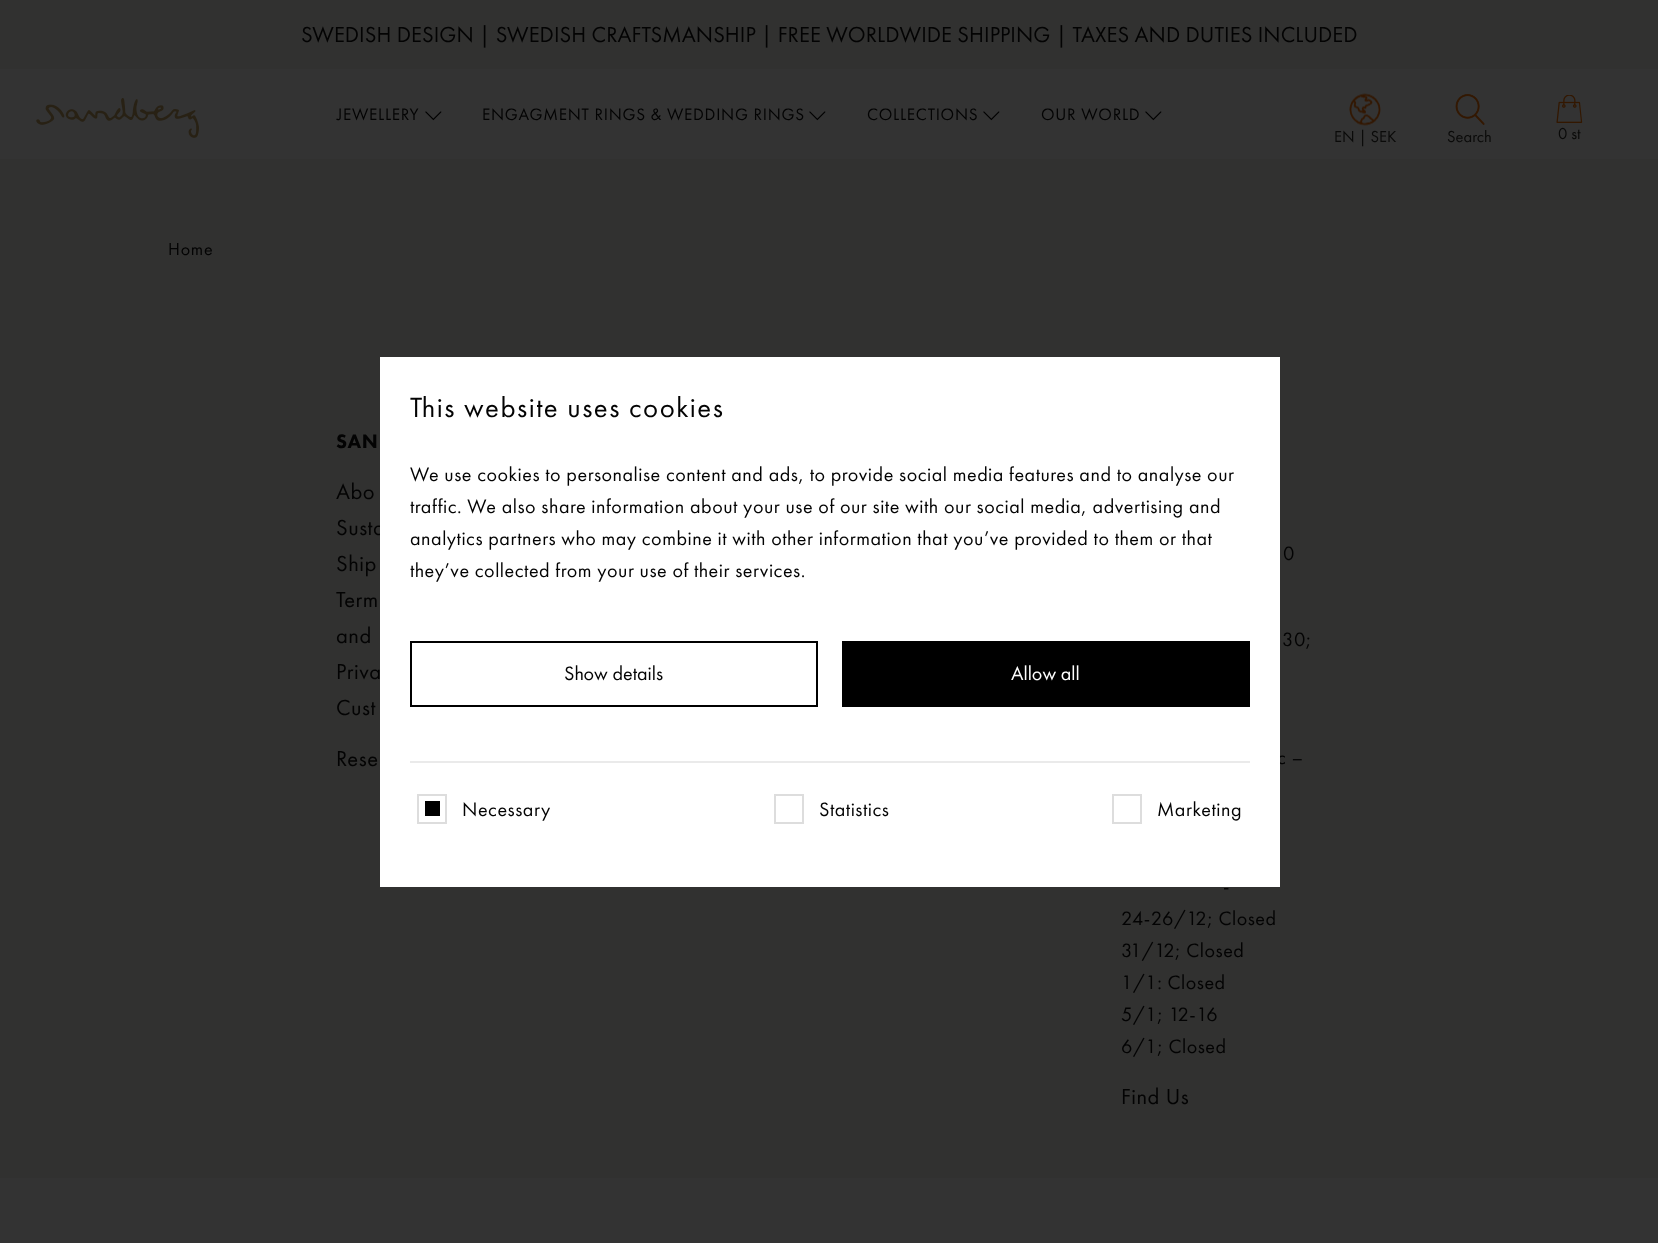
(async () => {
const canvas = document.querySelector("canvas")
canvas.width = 1658
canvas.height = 1243
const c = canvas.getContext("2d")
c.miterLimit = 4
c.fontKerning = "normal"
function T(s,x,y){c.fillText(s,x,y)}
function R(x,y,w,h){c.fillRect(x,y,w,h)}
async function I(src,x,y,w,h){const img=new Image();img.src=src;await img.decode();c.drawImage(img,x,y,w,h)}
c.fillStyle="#333"
R(0,0,1658,1243)
c.fillStyle="#313130"
R(0,0,1658,69)
c.letterSpacing="0.08px"
c.font="22.5px Futura PT"
c.fillStyle="#030303"
T("SWEDISH DESIGN | SWEDISH CRAFTSMANSHIP | FREE WORLDWIDE SHIPPING | TAXES AND DUTIES INCLUDED",301,42)
await I("1.png",36,98,163,40)
c.letterSpacing="0.75px"
c.font="17.1px Futura PT"
T("JEWELLERY",337,120)
await I("2.png",425,111,17,10)
T("ENGAGMENT RINGS & WEDDING RINGS",482,120)
await I("2.png",809,111,17,10)
T("COLLECTIONS",867,120)
await I("2.png",983,111,17,10)
T("OUR WORLD",1041,120)
await I("2.png",1145,111,17,10)
await I("3.png",1349,93,32,33)
c.letterSpacing="0px"
c.font="16.5px Futura PT"
c.fillStyle="#0a0a09"
T("EN | SEK",1334,142)
await I("4.png",1455,94,30,31)
T("Search",1447,142)
await I("5.png",1556,95,27,28)
T("0 st",1558,139)
c.fillStyle="#313130"
R(0,159,1658,1019)
c.letterSpacing="0.75px"
c.font="18px Futura PT"
c.fillStyle="#030303"
T("Home",168,255)
c.letterSpacing="0.52px"
c.font="22.5px Futura PT"
T("Susta",336,535)
T("Priva",336,679)
c.font="20.1px Futura PT"
T("c –",1277,764)
c.fillStyle="#fff"
R(380,357,900,530)
c.letterSpacing="1.5px"
c.font="28.75px Futura PT"
c.fillStyle="#030303"
T("This website uses cookies",410,417)
c.letterSpacing="0.52px"
c.font="20.1px Futura PT"
T("We use cookies to personalise content and ads, to provide social media features and to analyse our",410,481)
T("traffic. We also share information about your use of our site with our social media, advertising and",410,513)
T("analytics partners who may combine it with other information that you’ve provided to them or that",410,545)
T("they’ve collected from your use of their services.",410,577)
c.strokeStyle="#000"
c.lineWidth=2
c.strokeRect(411,642,406,64)
c.letterSpacing="0px"
T("Show details",564,680)
c.fillStyle="#000"
R(842,641,408,66)
c.fillStyle="#fff"
T("Allow all",1011,680)
c.fillStyle="#eaeaea"
R(410,761,840,2)
c.fillStyle="#000"
R(425,801,15,15)
c.strokeStyle="#ddd"
c.strokeRect(418,795,28,28)
c.letterSpacing="0.52px"
c.fillStyle="#030303"
T("Necessary",462,816)
c.strokeRect(775,795,28,28)
T("Statistics",819,816)
c.strokeRect(1113,795,28,28)
T("Marketing",1157,816)
c.letterSpacing="0.75px"
c.font="900 20.1px Futura PT"
T("SAN",336,448)
c.letterSpacing="0.52px"
c.font="22.5px Futura PT"
T("Abo",336,499)
T("Ship",336,571)
T("Term",336,607)
T("and",336,643)
T("Cust",336,715)
T("Rese",336,766)
c.font="20.1px Futura PT"
T("0",1283,560)
T("30;",1282,646)
T("-",1223,893)
T("24-26/12; Closed",1121,925)
T("31/12; Closed",1121,957)
T("1/1: Closed",1121,989)
T("5/1; 12-16",1121,1021)
T("6/1; Closed",1121,1053)
c.font="22.5px Futura PT"
T("Find Us",1121,1104)
})()
